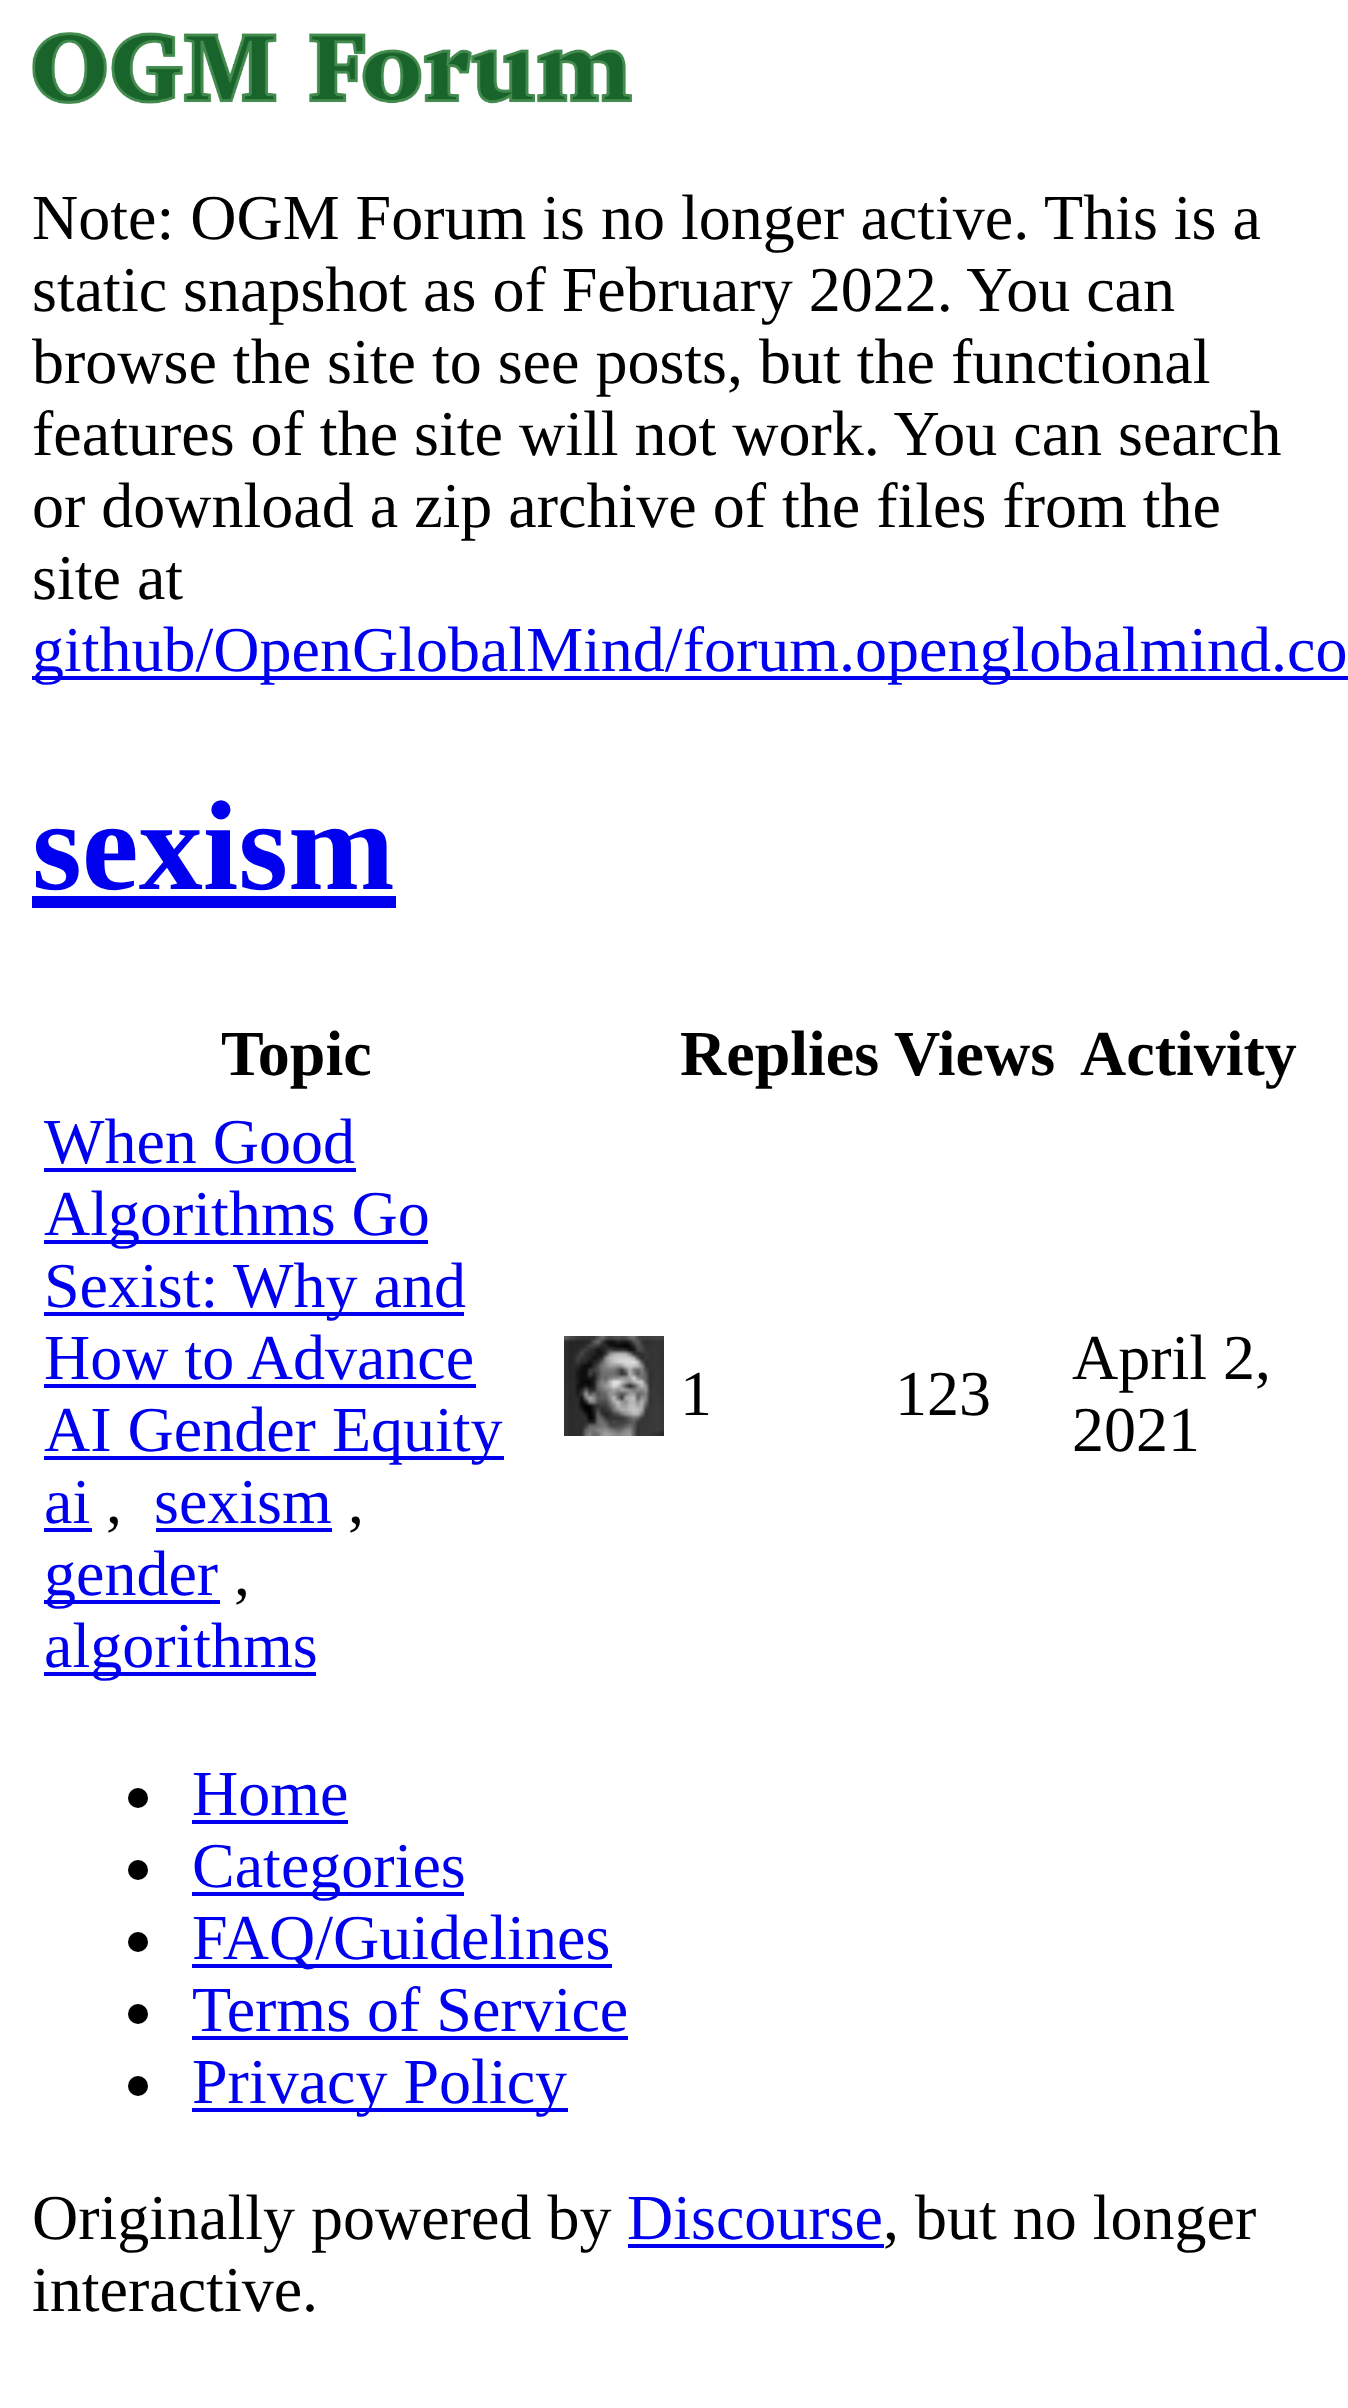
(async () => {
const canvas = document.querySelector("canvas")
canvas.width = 1348
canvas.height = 2408
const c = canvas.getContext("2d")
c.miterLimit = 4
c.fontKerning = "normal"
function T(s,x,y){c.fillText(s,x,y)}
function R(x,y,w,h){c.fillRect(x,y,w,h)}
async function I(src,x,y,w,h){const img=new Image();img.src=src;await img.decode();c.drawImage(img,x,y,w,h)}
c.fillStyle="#fff"
R(0,0,1348,2408)
await I("1.png",32,32,600,72)
c.font="64px Liberation Serif"
c.fillStyle="#000"
T("Note: OGM Forum is no longer active. This is a",32,239)
T("static snapshot as of February 2022. You can",32,311)
T("browse the site to see posts, but the functional",32,383)
T("features of the site will not work. You can search",32,455)
T("or download a zip archive of the files from the",32,527)
T("site at",32,599)
c.fillStyle="#00e"
R(32,676,1316,4)
T("github/OpenGlobalMind/forum.openglobalmind.co",32,671)
c.font="bold 128px Liberation Serif"
T("sexism",32,889)
R(32,896,364,12)
c.font="bold 64px Liberation Serif"
c.fillStyle="#000"
T("Topic",221,1075)
T("Replies Views",680,1075)
T("Activity",1080,1075)
c.font="64px Liberation Serif"
c.fillStyle="#00e"
T("When Good",44,1163)
R(44,1168,312,4)
R(44,1240,384,4)
T("Algorithms Go",44,1235)
R(44,1312,420,4)
T("Sexist: Why and",44,1307)
T("How to Advance",44,1379)
R(44,1384,432,4)
R(44,1456,460,4)
T("AI Gender Equity",44,1451)
T("ai",44,1523)
R(44,1528,48,4)
c.fillStyle="#000"
T(",",106,1523)
c.fillStyle="#00e"
T("sexism",154,1523)
R(156,1528,176,4)
c.fillStyle="#000"
T(",",348,1523)
c.fillStyle="#00e"
R(44,1600,176,4)
T("gender",44,1595)
c.fillStyle="#000"
T(",",234,1595)
c.fillStyle="#00e"
R(44,1672,272,4)
T("algorithms",44,1667)
await I("2.png",564,1336,100,100)
c.fillStyle="#000"
T("1",680,1415)
T("123",895,1415)
T("April 2,",1072,1379)
T("2021",1072,1451)
c.beginPath()
c.arc(138,1798,10,0,7)
c.fill()
c.fillStyle="#00e"
T("Home",192,1815)
R(192,1820,156,4)
c.fillStyle="#000"
c.beginPath()
c.arc(138,1870,10,0,7)
c.fill()
c.fillStyle="#00e"
R(192,1892,272,4)
T("Categories",192,1887)
c.fillStyle="#000"
c.beginPath()
c.arc(138,1942,10,0,7)
c.fill()
c.fillStyle="#00e"
R(192,1964,420,4)
T("FAQ/Guidelines",192,1959)
c.fillStyle="#000"
c.beginPath()
c.arc(138,2014,10,0,7)
c.fill()
c.fillStyle="#00e"
T("Terms of Service",192,2031)
R(192,2036,436,4)
c.fillStyle="#000"
c.beginPath()
c.arc(138,2086,10,0,7)
c.fill()
c.fillStyle="#00e"
R(192,2108,376,4)
T("Privacy Policy",192,2103)
c.fillStyle="#000"
T("Originally powered by",32,2239)
c.fillStyle="#00e"
T("Discourse",627,2239)
R(628,2244,256,4)
c.fillStyle="#000"
T(", but no longer",883,2239)
T("interactive.",32,2311)
})()
